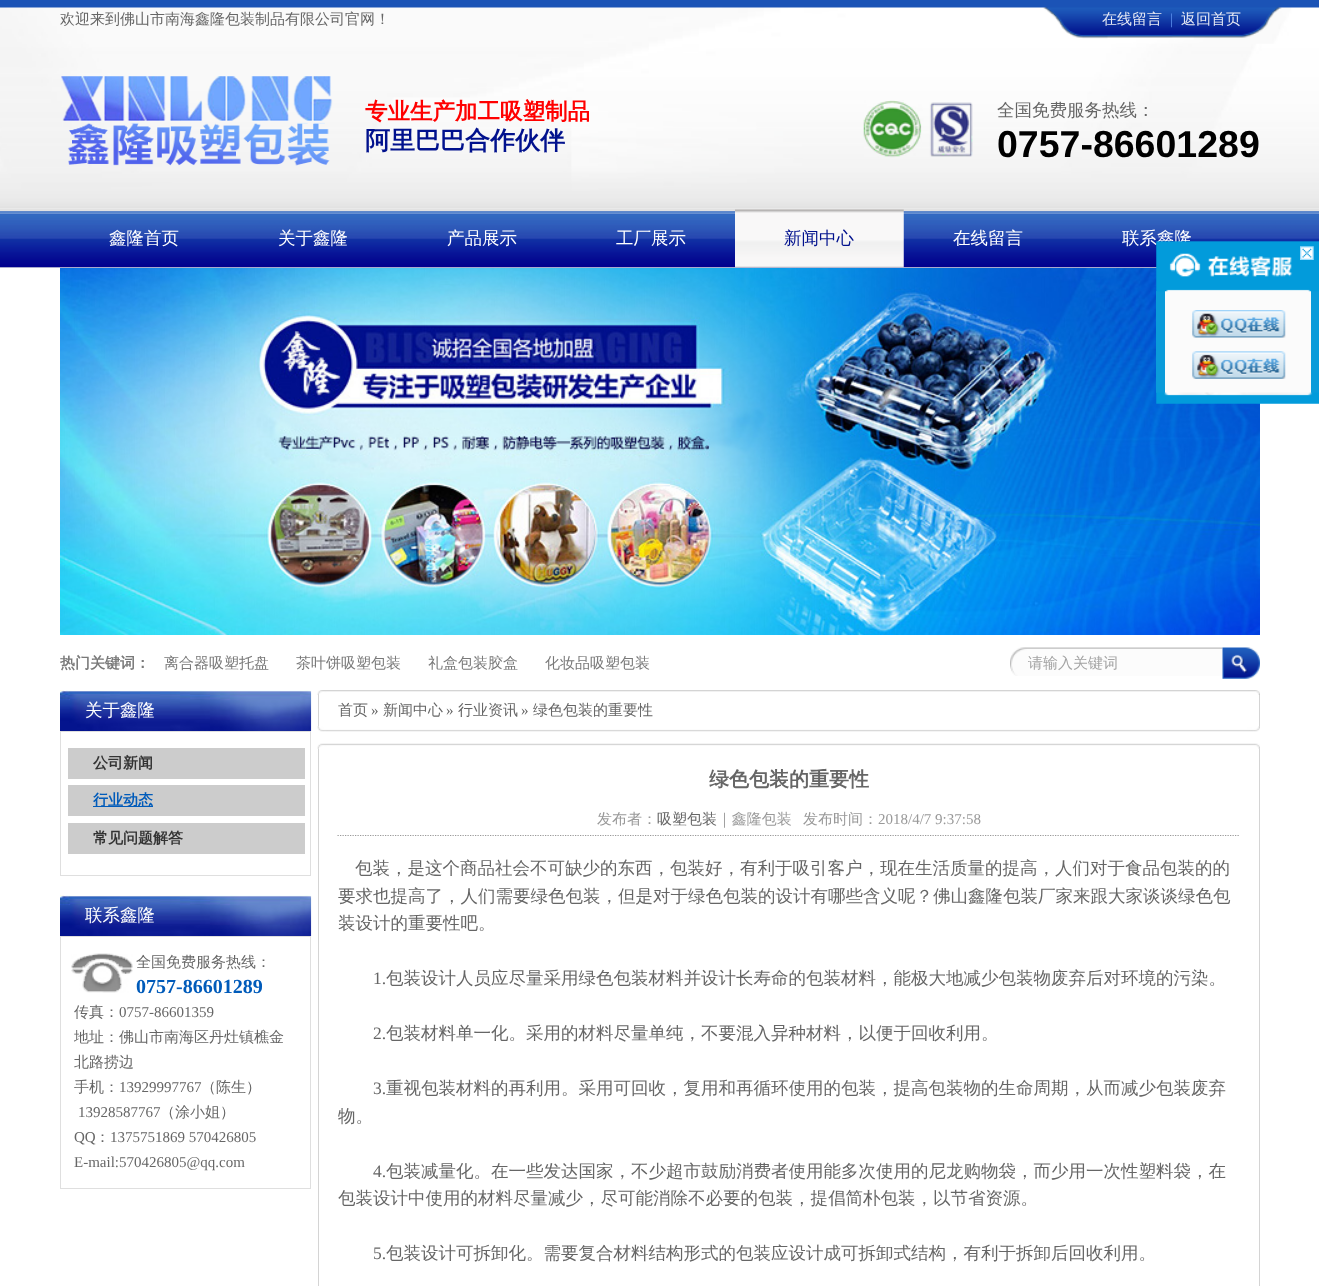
(async () => {
const canvas = document.querySelector("canvas")
canvas.width = 1319
canvas.height = 1286
const c = canvas.getContext("2d")
c.miterLimit = 4
c.fontKerning = "normal"
function T(s,x,y){c.fillText(s,x,y)}
function R(x,y,w,h){c.fillRect(x,y,w,h)}
async function I(src,x,y,w,h){const img=new Image();img.src=src;await img.decode();c.drawImage(img,x,y,w,h)}
let path
c.fillStyle="#fff"
R(0,0,1319,1286)
await I("1.png",0,0,1319,209)
c.font="500 15px WenQuanYi Zen Hei"
c.fillStyle="#666"
T("欢迎来到佛山市南海鑫隆包装制品有限公司官网！",60,24)
c.fillStyle="#e7eaf4"
T("在线留言",1102,24)
c.font="15px Liberation Serif"
c.fillStyle="#5d91ef"
T("|",1170,24)
c.font="500 15px WenQuanYi Zen Hei"
c.fillStyle="#e7eaf4"
T("返回首页",1181,24)
await I("2.png",61,76,272,90)
c.font="bold 22.5px WenQuanYi Zen Hei"
c.fillStyle="#f00"
T("专业生产加工吸塑制品",365,119)
c.font="bold 25px WenQuanYi Zen Hei"
c.fillStyle="#01118d"
T("阿里巴巴合作伙伴",365,149)
await I("3.png",863,100,59,58)
await I("4.png",921,102,52,55)
c.font="500 17.5px WenQuanYi Zen Hei"
c.fillStyle="#666"
T("全国免费服务热线：",997,116)
c.font="bold 37.5px Liberation Sans"
c.fillStyle="#000"
T("0757-86601289",997,157)
c.fillStyle="#e2e2e2"
R(0,209,1319,59)
await I("5.png",0,211,1319,57)
c.font="500 17.5px WenQuanYi Zen Hei"
c.fillStyle="#fff"
T("鑫隆首页",109,244)
T("关于鑫隆",278,244)
T("产品展示",447,244)
T("工厂展示",616,244)
await I("6.png",735,209,169,59)
c.fillStyle="#01118d"
T("新闻中心",784,244)
c.fillStyle="#fff"
T("在线留言",953,244)
T("联系鑫隆",1122,244)
await I("12.png",60,268,1200,367)
c.fillStyle="#fbfbfb"
R(1165,291,146,102)
c.fillStyle="#0a9bda"
R(1311,291,8,102)
R(1156,291,9,102)
await I("7.png",1156,241,163,51)
await I("8.png",1300,246,14,14)
await I("9.png",1192,310,94,28)
await I("10.png",1192,351,94,28)
await I("11.png",1156,392,163,12)
c.font="bold 15px WenQuanYi Zen Hei"
c.fillStyle="#797979"
T("热门关键词：",60,668)
c.font="500 15px WenQuanYi Zen Hei"
T("离合器吸塑托盘",164,668)
T("茶叶饼吸塑包装",296,668)
T("礼盒包装胶盒",428,668)
T("化妆品吸塑包装",545,668)
await I("13.png",1010,647,213,29)
c.fillStyle="#a3a3a3"
T("请输入关键词",1028,668)
await I("14.png",1222,647,38,32)
await I("15.png",60,690,252,41)
c.font="500 17.5px WenQuanYi Zen Hei"
c.fillStyle="#fff"
T("关于鑫隆",85,716)
c.strokeStyle="#dfdfdf"
c.strokeRect(60.5,731.5,250,144)
c.fillStyle="#ccc"
R(68,748,237,31)
c.font="bold 15px WenQuanYi Zen Hei"
c.fillStyle="#333"
T("公司新闻",93,768)
c.fillStyle="#ccc"
R(68,785,237,31)
c.fillStyle="#005bba"
R(93,806,60,1)
T("行业动态",93,805)
c.fillStyle="#ccc"
R(68,823,237,31)
c.fillStyle="#333"
T("常见问题解答",93,843)
await I("15.png",60,895,252,41)
c.font="500 17.5px WenQuanYi Zen Hei"
c.fillStyle="#fff"
T("联系鑫隆",85,921)
await I("16.png",71,953,62,40)
c.strokeRect(60.5,936.5,250,252)
c.font="500 15px WenQuanYi Zen Hei"
c.fillStyle="#666"
T("全国免费服务热线：",136,967)
c.font="bold 20px Liberation Serif"
c.fillStyle="#005bba"
T("0757-86601289",136,993)
c.font="500 15px WenQuanYi Zen Hei"
c.fillStyle="#666"
T("传真：",74,1017)
c.font="15px Liberation Serif"
T("0757-86601359",119,1017)
c.font="500 15px WenQuanYi Zen Hei"
T("地址：佛山市南海区丹灶镇樵金",74,1042)
T("北路捞边",74,1067)
T("手机：",74,1092)
c.font="15px Liberation Serif"
T("13929997767",119,1092)
c.font="500 15px WenQuanYi Zen Hei"
T("（陈生）",201,1092)
c.font="15px Liberation Serif"
T("13928587767",78,1117)
c.font="500 15px WenQuanYi Zen Hei"
T("（涂小姐）",160,1117)
c.font="15px Liberation Serif"
T("QQ",74,1142)
c.font="500 15px WenQuanYi Zen Hei"
T("：",95,1142)
c.wordSpacing="-2.5px"
c.font="15px Liberation Serif"
T("1375751869   570426805",110,1142)
c.wordSpacing="0px"
T("E-mail:570426805@qq.com",74,1167)
await I("17.png",317,690,943,5)
c.fillStyle="#d4d4d4"
R(1259,695,1,31)
R(318,695,1,31)
c.font="500 15px WenQuanYi Zen Hei"
c.fillStyle="#666"
T("首页",338,715)
c.font="15px Liberation Serif"
T("»",371,715)
c.font="500 15px WenQuanYi Zen Hei"
T("新闻中心",383,715)
c.font="15px Liberation Serif"
T("»",446,715)
c.font="500 15px WenQuanYi Zen Hei"
T("行业资讯",458,715)
c.font="15px Liberation Serif"
T("»",521,715)
c.font="500 15px WenQuanYi Zen Hei"
T("绿色包装的重要性",533,715)
await I("18.png",317,726,943,6)
await I("19.png",317,743,943,6)
c.fillStyle="#d4d4d4"
R(1259,749,1,537)
R(318,749,1,537)
c.font="bold 20px WenQuanYi Zen Hei"
c.fillStyle="#666"
T("绿色包装的重要性",709,786)
path = new Path2D("M337.5 835.5h902.5")
c.strokeStyle="#999"
c.lineWidth=1.2
c.setLineDash([1.25,1.25])
c.stroke(path)
c.font="500 15px WenQuanYi Zen Hei"
c.fillStyle="#999"
T("发布者：",597,824)
c.fillStyle="#666"
T("吸塑包装",657,824)
c.fillStyle="#999"
T("｜鑫隆包装",717,824)
T("发布时间：",803,824)
c.font="15px Liberation Serif"
T("2018/4/7 9:37:58",878,824)
c.font="500 17.5px WenQuanYi Zen Hei"
c.fillStyle="#666"
T("包装，是这个商品社会不可缺少的东西，包装好，有利于吸引客户，现在生活质量的提高，人们对于食品包装的的",355,874)
T("要求也提高了，人们需要绿色包装，但是对于绿色包装的设计有哪些含义呢？佛山鑫隆包装厂家来跟大家谈谈绿色包",338,902)
T("装设计的重要性吧。",338,929)
c.font="17.5px Liberation Serif"
T("1.",373,984)
c.font="500 17.5px WenQuanYi Zen Hei"
T("包装设计人员应尽量采用绿色包装材料并设计长寿命的包装材料，能极大地减少包装物废弃后对环境的污染。",386,984)
c.font="17.5px Liberation Serif"
T("2.",373,1039)
c.font="500 17.5px WenQuanYi Zen Hei"
T("包装材料单一化。采用的材料尽量单纯，不要混入异种材料，以便于回收利用。",386,1039)
c.font="17.5px Liberation Serif"
T("3.",373,1094)
c.font="500 17.5px WenQuanYi Zen Hei"
T("重视包装材料的再利用。采用可回收，复用和再循环使用的包装，提高包装物的生命周期，从而减少包装废弃",386,1094)
T("物。",338,1122)
c.font="17.5px Liberation Serif"
T("4.",373,1177)
c.font="500 17.5px WenQuanYi Zen Hei"
T("包装减量化。在一些发达国家，不少超市鼓励消费者使用能多次使用的尼龙购物袋，而少用一次性塑料袋，在",386,1177)
T("包装设计中使用的材料尽量减少，尽可能消除不必要的包装，提倡简朴包装，以节省资源。",338,1204)
c.font="17.5px Liberation Serif"
T("5.",373,1259)
c.font="500 17.5px WenQuanYi Zen Hei"
T("包装设计可拆卸化。需要复合材料结构形式的包装应设计成可拆卸式结构，有利于拆卸后回收利用。",386,1259)
})()
